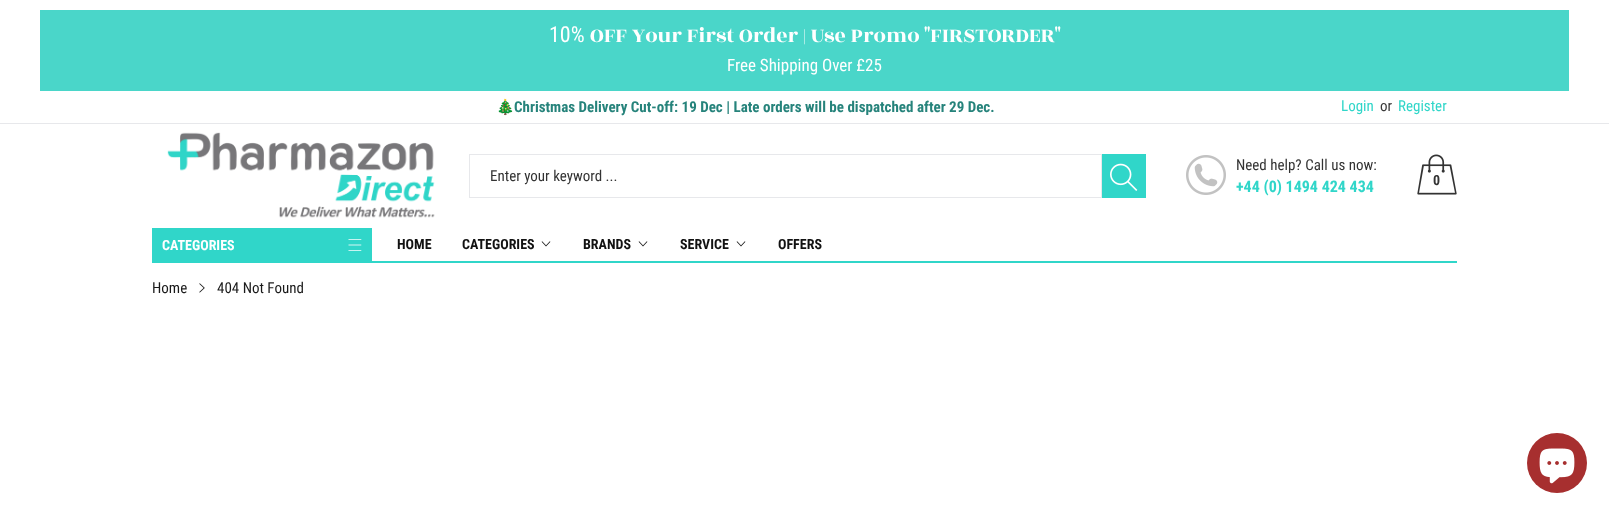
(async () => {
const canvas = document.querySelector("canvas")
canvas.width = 1609
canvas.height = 514
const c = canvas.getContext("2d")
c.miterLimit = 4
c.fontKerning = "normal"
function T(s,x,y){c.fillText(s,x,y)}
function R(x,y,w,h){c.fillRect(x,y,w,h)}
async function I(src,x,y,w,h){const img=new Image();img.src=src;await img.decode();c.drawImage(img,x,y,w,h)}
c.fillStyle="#fff"
R(0,0,1609,514)
c.fillStyle="#4ad6c9"
R(40,10,1529,81)
c.font="22px Roboto Condensed"
c.fillStyle="#fff"
T("10%",549,42)
c.font="22px Rozha One"
T("OFF Your First Order | Use Promo \"FIRSTORDER\"",590,42)
c.font="17px Roboto Condensed"
T("Free Shipping Over £25",727,71)
c.fillStyle="#e7e8eb"
R(0,123,1609,1)
c.font="bold 15px Noto Color Emoji"
c.fillStyle="#26837b"
T("🎄",496,112)
c.font="bold 15px Roboto Condensed"
T("Christmas Delivery Cut-off: 19 Dec | Late orders will be dispatched after 29 Dec.",514,112)
c.font="15px Roboto Condensed"
c.fillStyle="#30d6c9"
T("Login",1341,111)
c.fillStyle="#393939"
T("or",1380,111)
c.fillStyle="#30d6c9"
T("Register",1398,111)
await I("1.png",167,132,268,86)
c.strokeStyle="#e7e8eb"
c.strokeRect(469.5,154.5,632,43)
c.fillStyle="#333"
T("Enter your keyword ...",490,181)
c.fillStyle="#30d6c9"
R(1102,154,44,44)
await I("2.png",1110,163,28,28)
await I("3.png",1186,155,40,40)
c.fillStyle="#333"
T("Need help? Call us now:",1236,170)
c.font="bold 16px Roboto Condensed"
c.fillStyle="#30d6c9"
T("+44 (0) 1494 424 434",1236,192)
await I("4.png",1417,154,40,41)
c.font="bold 14px Roboto Condensed"
c.fillStyle="#333"
T("0",1433,185)
c.fillStyle="#30d6c9"
R(372,261,1085,2)
R(152,228,220,35)
c.fillStyle="#fff"
T("CATEGORIES",162,250)
await I("5.png",348,239,14,12)
c.fillStyle="#121212"
T("HOME",397,249)
T("CATEGORIES",462,249)
await I("6.png",541,241,10,6)
T("BRANDS",583,249)
await I("6.png",638,241,10,6)
T("SERVICE",680,249)
await I("6.png",736,241,10,6)
T("OFFERS",778,249)
c.font="15px Roboto Condensed"
c.fillStyle="#1a1a1a"
T("Home",152,293)
await I("7.png",199,283,6,10)
T("404 Not Found",217,293)
c.fillStyle="#a72f2f"
c.beginPath()
c.arc(1557,463,30,0,7)
c.fill()
await I("8.png",1539,448,36,36)
})()
